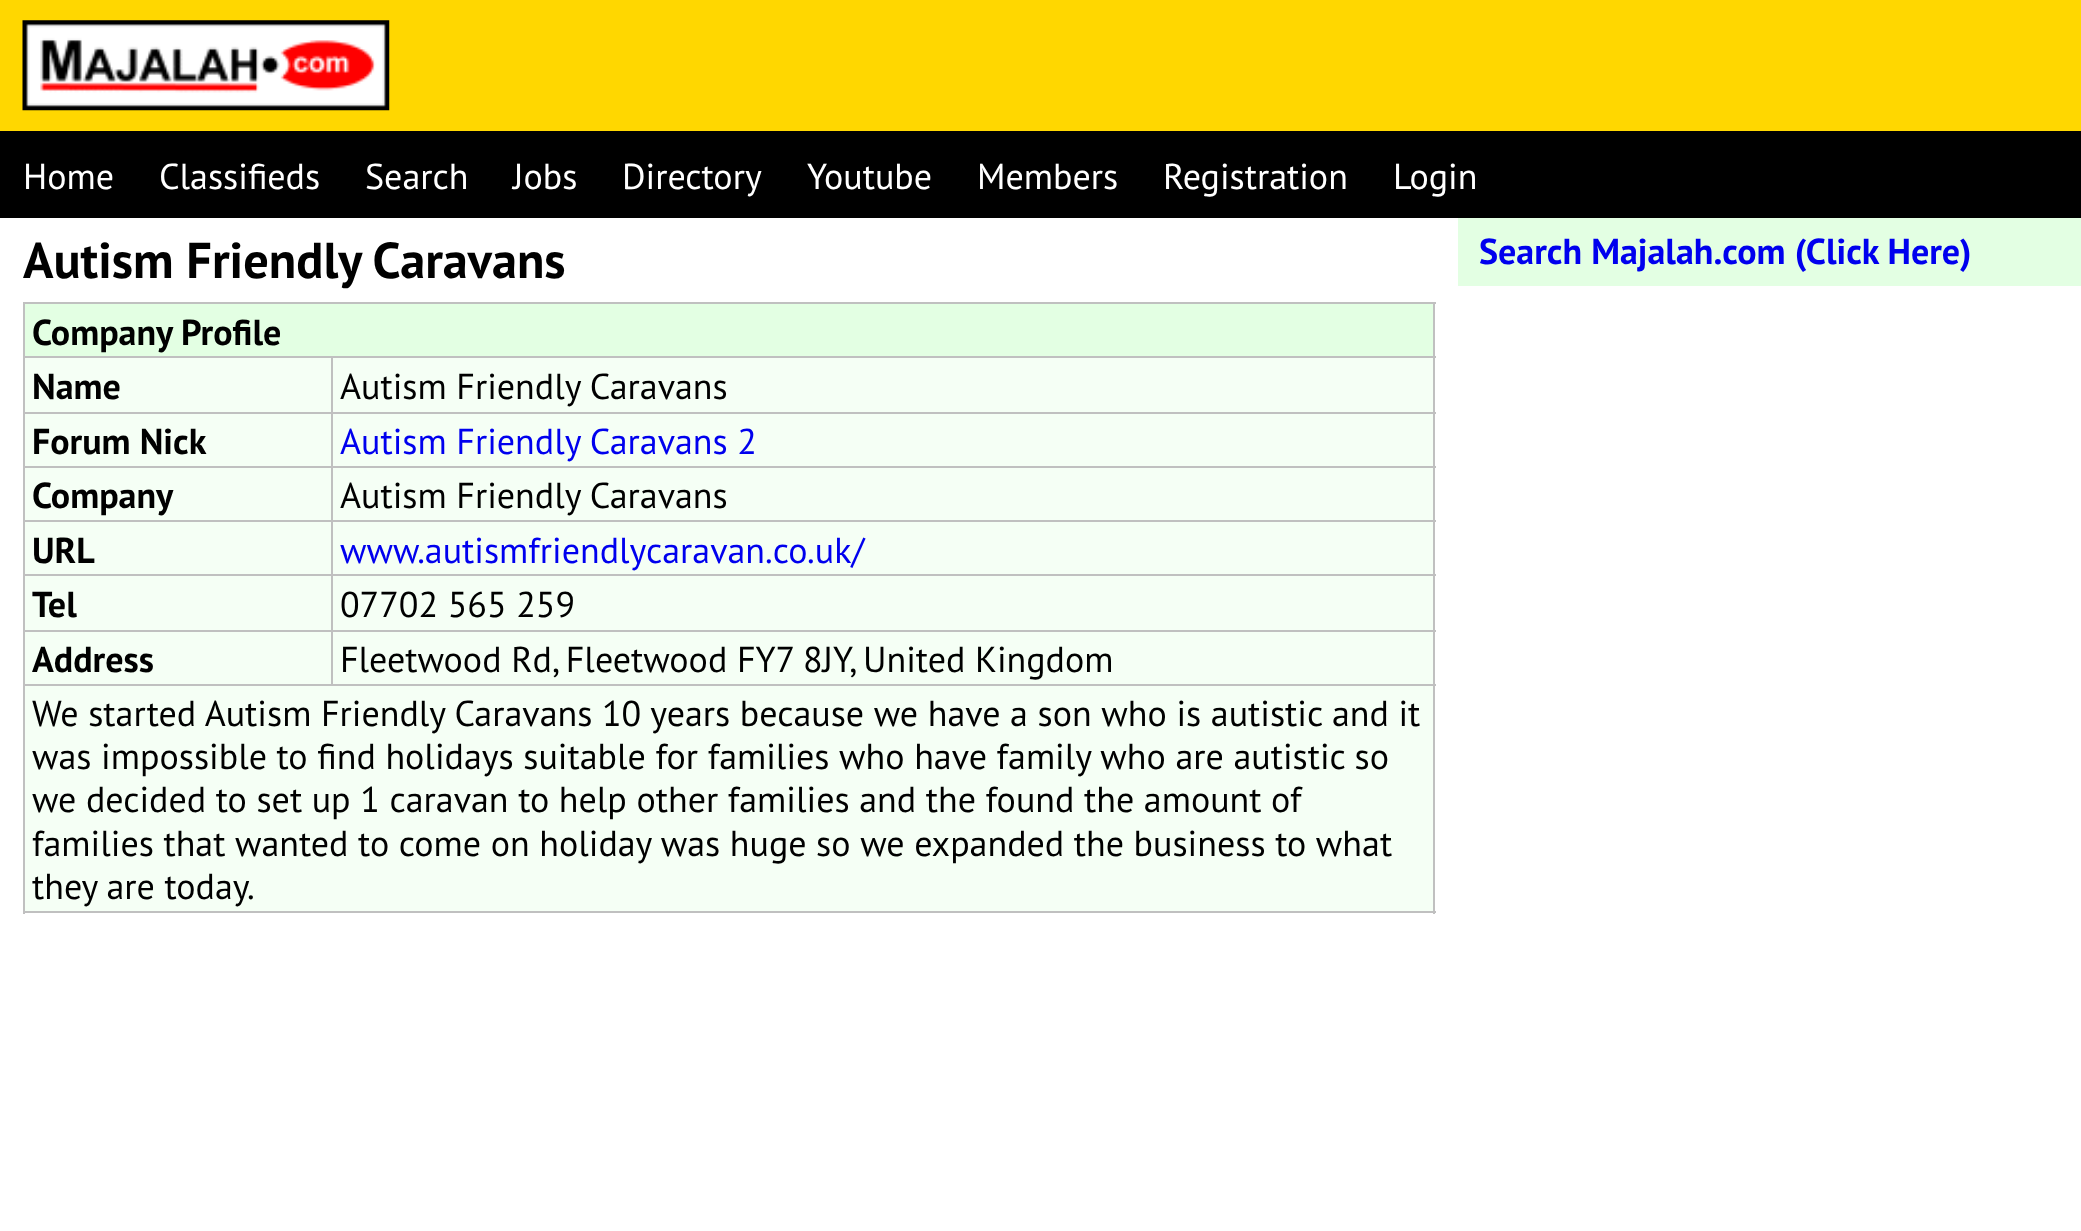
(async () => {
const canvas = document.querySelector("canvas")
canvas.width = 2081
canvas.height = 1231
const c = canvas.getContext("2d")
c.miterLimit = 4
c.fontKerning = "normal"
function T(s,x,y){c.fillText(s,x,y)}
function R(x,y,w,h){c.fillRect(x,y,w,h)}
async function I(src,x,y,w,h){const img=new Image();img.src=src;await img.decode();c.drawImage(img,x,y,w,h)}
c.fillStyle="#fff"
R(0,0,2081,1231)
c.fillStyle="#ffd700"
R(0,0,2081,131)
await I("1.png",22,20,368,91)
c.fillStyle="#000"
R(0,131,2081,87)
c.font="36px PT Sans"
c.fillStyle="#fff"
T("Home",23,189)
T("Classifieds",159,189)
T("Search",365,189)
T("Jobs",513,189)
T("Directory",622,189)
T("Youtube",807,189)
T("Members",977,189)
T("Registration",1163,189)
T("Login",1393,189)
c.font="bold 50.4px PT Sans"
c.fillStyle="#000"
T("Autism Friendly Caravans",23,278)
c.fillStyle="#e3ffe3"
R(25,304,1408,52)
c.fillStyle="#c0c0c0"
R(23,302,1413,2)
R(331,356,1105,2)
R(331,412,1105,2)
R(331,466,1105,2)
R(331,520,1105,2)
R(331,574,1105,2)
R(331,630,1105,2)
R(23,684,1413,2)
R(1433,684,2,230)
R(1433,630,2,56)
R(1433,574,2,58)
R(1433,520,2,56)
R(1433,466,2,56)
R(1433,412,2,56)
R(1433,356,2,58)
R(1433,302,2,56)
R(331,630,2,56)
R(23,630,310,2)
R(331,574,2,58)
R(23,574,310,2)
R(331,520,2,56)
R(23,520,310,2)
R(331,466,2,56)
R(23,466,310,2)
R(331,412,2,56)
R(23,412,310,2)
R(331,356,2,58)
R(23,356,310,2)
R(23,911,1413,2)
R(23,684,2,230)
R(23,630,2,56)
R(23,574,2,58)
R(23,520,2,56)
R(23,466,2,56)
R(23,412,2,56)
R(23,356,2,58)
R(23,302,2,56)
c.font="bold 36px PT Sans"
c.fillStyle="#000"
T("Company Profile",32,345)
c.fillStyle="#f5fff5"
R(25,358,306,54)
c.fillStyle="#000"
T("Name",32,399)
c.fillStyle="#f5fff5"
R(333,358,1100,54)
c.font="36px PT Sans"
c.fillStyle="#000"
T("Autism Friendly Caravans",340,399)
c.fillStyle="#f5fff5"
R(25,414,306,52)
c.font="bold 36px PT Sans"
c.fillStyle="#000"
T("Forum Nick",32,454)
c.fillStyle="#f5fff5"
R(333,414,1100,52)
c.font="36px PT Sans"
c.fillStyle="#00e"
T("Autism Friendly Caravans 2",340,454)
c.fillStyle="#f5fff5"
R(25,468,306,52)
c.font="bold 36px PT Sans"
c.fillStyle="#000"
T("Company",32,508)
c.fillStyle="#f5fff5"
R(333,468,1100,52)
c.font="36px PT Sans"
c.fillStyle="#000"
T("Autism Friendly Caravans",340,508)
c.fillStyle="#f5fff5"
R(25,522,306,52)
c.font="bold 36px PT Sans"
c.fillStyle="#000"
T("URL",32,563)
c.fillStyle="#f5fff5"
R(333,522,1100,52)
c.font="36px PT Sans"
c.fillStyle="#00e"
T("www.autismfriendlycaravan.co.uk/",340,563)
c.fillStyle="#f5fff5"
R(25,576,306,54)
c.font="bold 36px PT Sans"
c.fillStyle="#000"
T("Tel",32,617)
c.fillStyle="#f5fff5"
R(333,576,1100,54)
c.font="36px PT Sans"
c.fillStyle="#000"
T("07702 565 259",340,617)
c.fillStyle="#f5fff5"
R(25,632,306,52)
c.font="bold 36px PT Sans"
c.fillStyle="#000"
T("Address",32,672)
c.fillStyle="#f5fff5"
R(333,632,1100,52)
c.font="36px PT Sans"
c.fillStyle="#000"
T("Fleetwood Rd, Fleetwood FY7 8JY, United Kingdom",340,672)
c.fillStyle="#f5fff5"
R(25,686,1408,225)
c.fillStyle="#000"
T("We started Autism Friendly Caravans 10 years because we have a son who is autistic and it",32,726)
T("was impossible to find holidays suitable for families who have family who are autistic so",32,769)
T("we decided to set up 1 caravan to help other families and the found the amount of",32,812)
T("families that wanted to come on holiday was huge so we expanded the business to what",32,856)
T("they are today.",32,899)
c.fillStyle="#e3ffe3"
R(1458,218,623,68)
c.font="bold 36px PT Sans"
c.fillStyle="#00e"
T("Search Majalah.com (Click Here)",1479,264)
})()
